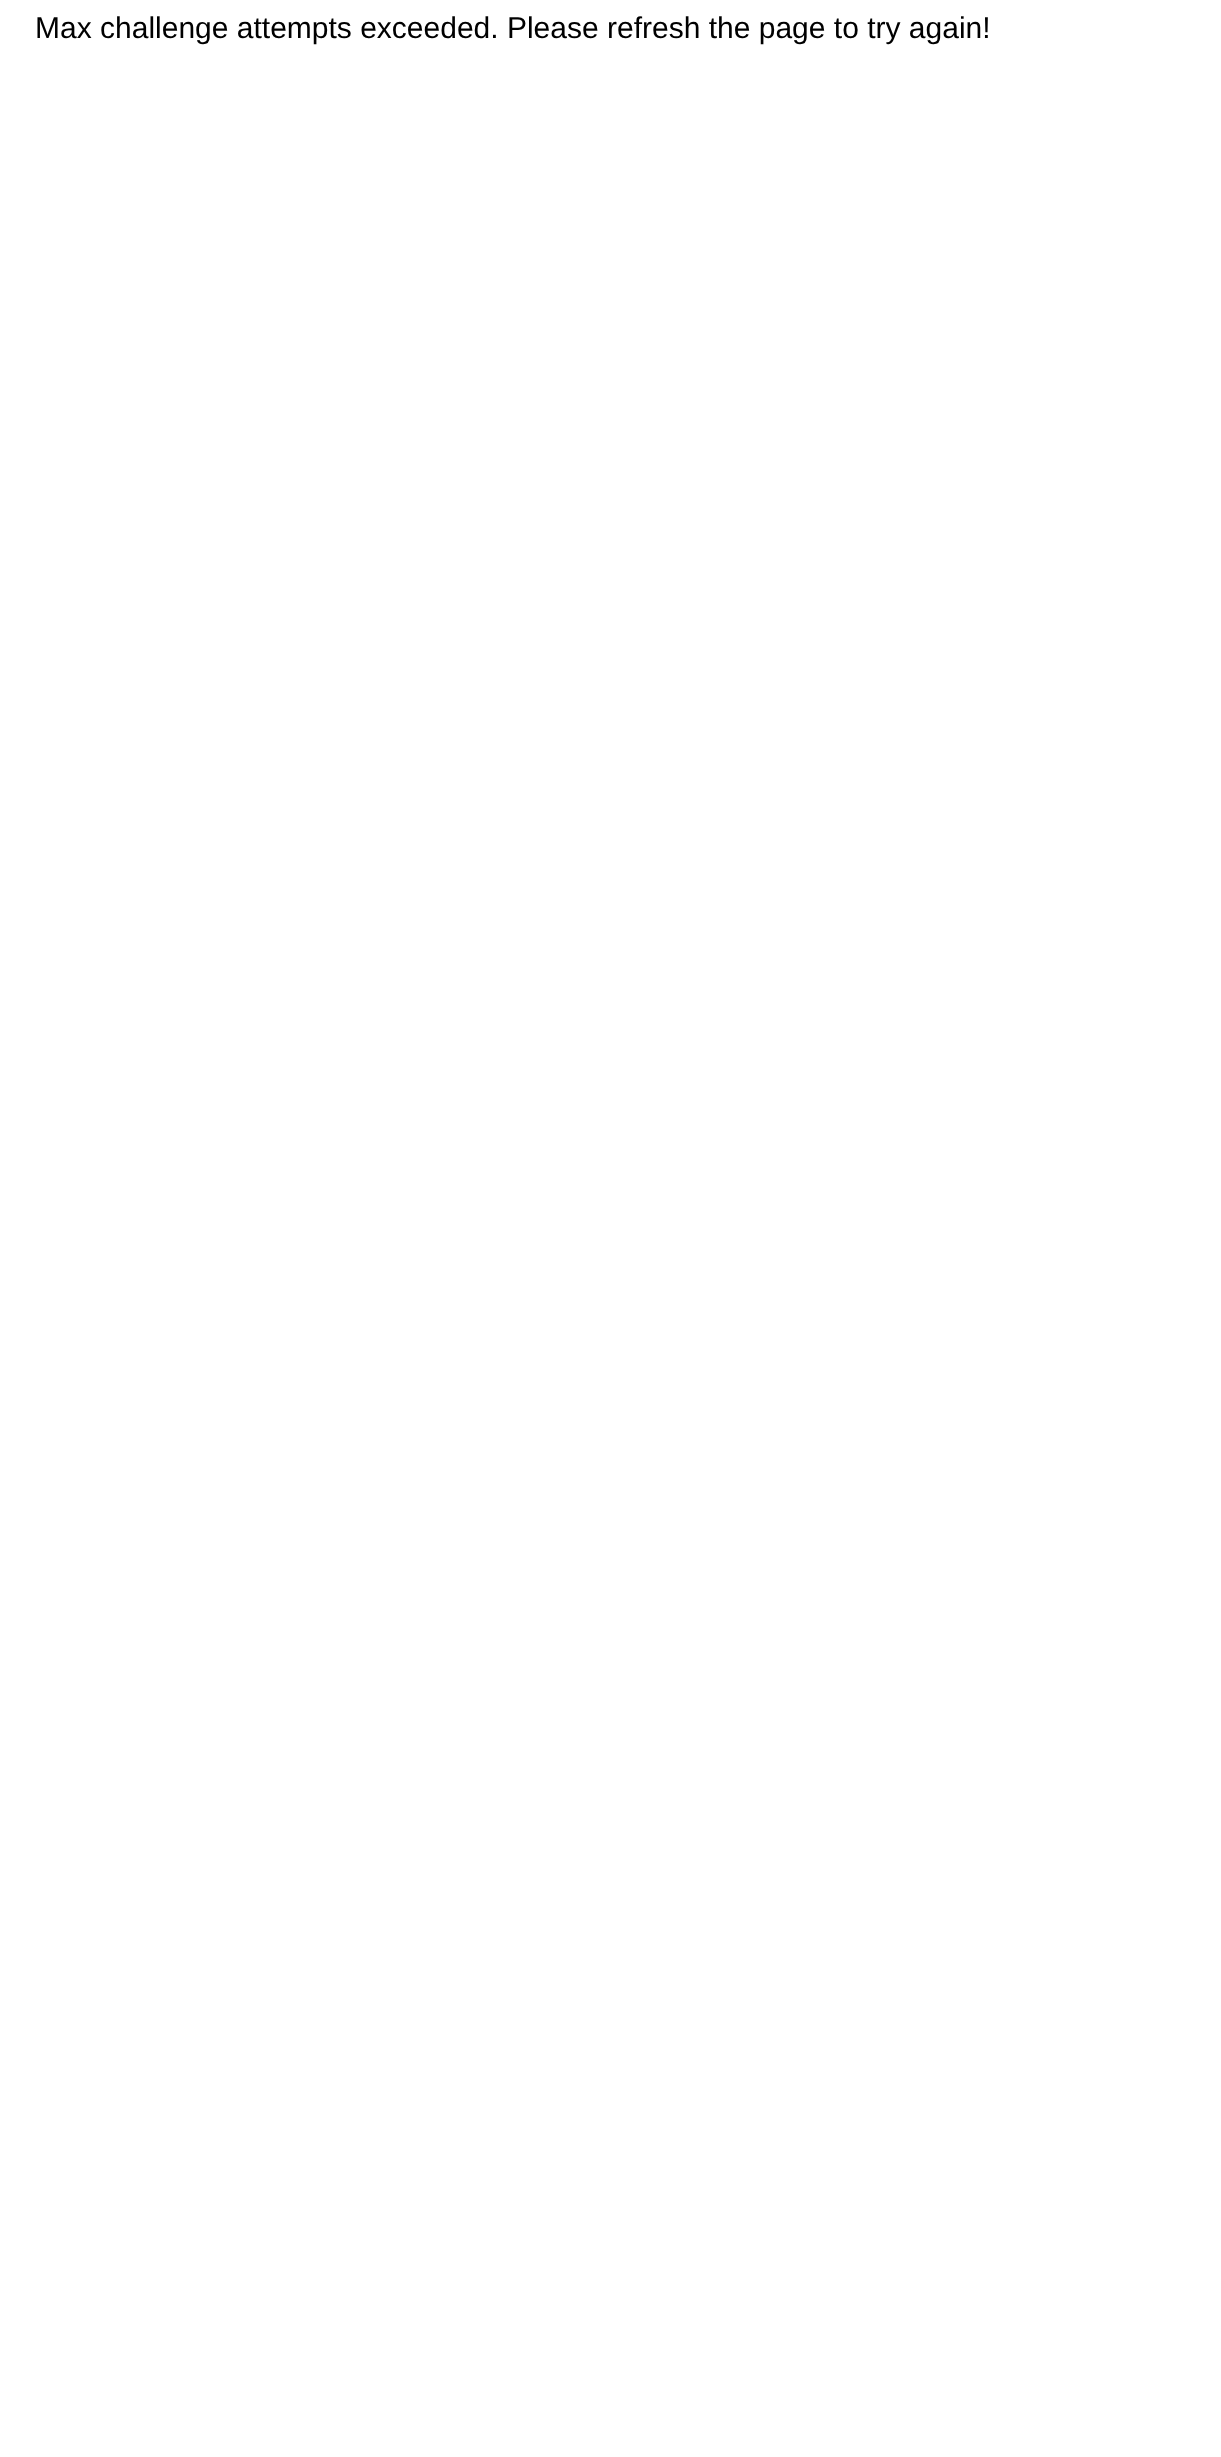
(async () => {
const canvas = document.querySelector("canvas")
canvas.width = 1221
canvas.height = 2457
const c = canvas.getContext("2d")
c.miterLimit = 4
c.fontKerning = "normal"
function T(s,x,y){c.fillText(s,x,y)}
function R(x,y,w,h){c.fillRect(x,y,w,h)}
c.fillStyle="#fff"
R(0,0,1221,2457)
c.font="30px Liberation Sans"
c.fillStyle="#000"
T("Max challenge attempts exceeded. Please refresh the page to try again!",35,38)
})()
